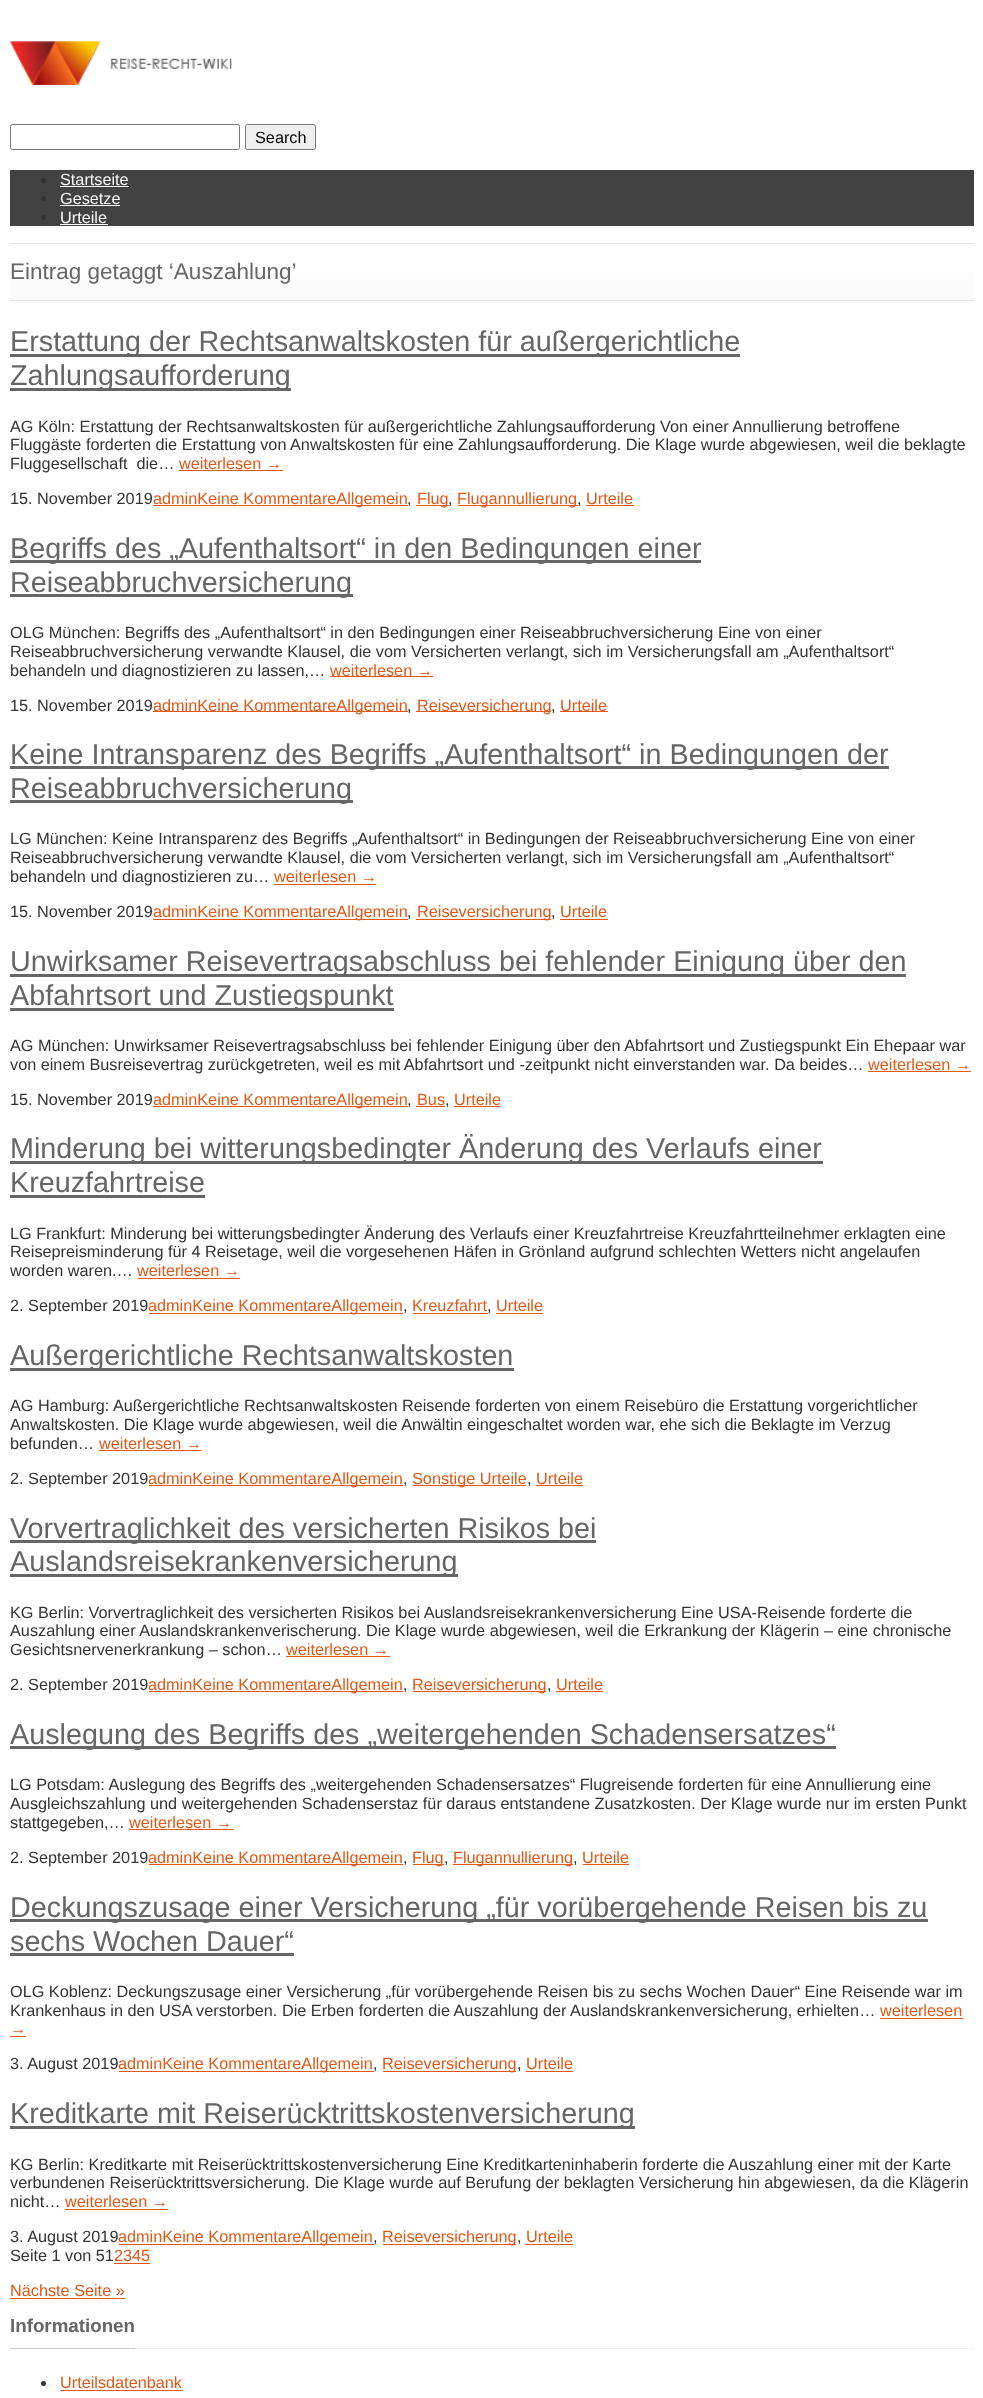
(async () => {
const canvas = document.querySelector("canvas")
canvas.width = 983
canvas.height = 2398
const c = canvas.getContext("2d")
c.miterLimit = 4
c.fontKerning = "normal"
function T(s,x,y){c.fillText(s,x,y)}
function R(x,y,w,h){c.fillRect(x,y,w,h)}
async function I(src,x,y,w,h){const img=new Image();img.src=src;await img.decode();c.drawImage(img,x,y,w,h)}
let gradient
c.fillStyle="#fff"
R(0,0,983,2398)
await I("1.png",10,41,222,44)
c.beginPath()
c.roundRect(10.5,124.5,229,25,2)
c.strokeStyle="#767676"
c.stroke()
c.fillStyle="#efefef"
c.beginPath()
c.roundRect(245.5,124.5,70,25,2)
c.fill()
c.stroke()
c.font="16.25px Liberation Sans"
c.fillStyle="#000"
T("Search",255,143)
c.fillStyle="#424242"
R(10,170,964,56)
c.fillStyle="#333"
c.beginPath()
c.arc(43.5,180.5,2.5,0,7)
c.fill()
c.fillStyle="#fafafa"
T("Startseite",60,185)
R(60,186,69,1)
c.fillStyle="#333"
c.beginPath()
c.arc(43.5,198.5,2.5,0,7)
c.fill()
c.fillStyle="#fafafa"
T("Gesetze",60,204)
R(60,205,60,1)
c.fillStyle="#333"
c.beginPath()
c.arc(43.5,217.5,2.5,0,7)
c.fill()
c.fillStyle="#fafafa"
T("Urteile",60,223)
R(60,224,48,1)
gradient = c.createLinearGradient(492,300,492,244)
gradient.addColorStop(0,"#fafafa")
gradient.addColorStop(1,"#fff")
c.fillStyle = gradient
R(10,272,964,28)
c.fillStyle="#e4e4e4"
R(10,243,964,1)
R(10,300,964,1)
c.font="22.5px Liberation Sans"
c.fillStyle="#666"
T("Eintrag getaggt ‘Auszahlung’",10,279)
R(10,354,730,3)
c.font="28.75px Liberation Sans"
T("Erstattung der Rechtsanwaltskosten für außergerichtliche",10,351)
R(10,388,281,3)
T("Zahlungsaufforderung",10,385)
c.font="16.25px Liberation Sans"
c.fillStyle="#333"
T("AG Köln: Erstattung der Rechtsanwaltskosten für außergerichtliche Zahlungsaufforderung Von einer Annullierung betroffene",10,432)
T("Fluggäste forderten die Erstattung von Anwaltskosten für eine Zahlungsaufforderung. Die Klage wurde abgewiesen, weil die beklagte",10,450)
T("Fluggesellschaft  die…",10,469)
c.fillStyle="#e25814"
T("weiterlesen →",179,469)
R(179,470,104,1)
c.fillStyle="#333"
T("15. November 2019",10,504)
c.fillStyle="#e25814"
R(153,505,255,1)
T("adminKeine KommentareAllgemein",153,504)
c.fillStyle="#333"
T(",",407,504)
c.fillStyle="#e25814"
R(416,505,33,1)
T("Flug",417,504)
c.fillStyle="#333"
T(",",448,504)
c.fillStyle="#e25814"
R(458,505,120,1)
T("Flugannullierung",457,504)
c.fillStyle="#333"
T(",",577,504)
c.fillStyle="#e25814"
R(586,505,48,1)
T("Urteile",586,504)
c.fillStyle="#666"
R(10,560,691,3)
c.font="28.75px Liberation Sans"
T("Begriffs des „Aufenthaltsort“ in den Bedingungen einer",10,558)
R(10,594,343,3)
T("Reiseabbruchversicherung",10,592)
c.font="16.25px Liberation Sans"
c.fillStyle="#333"
T("OLG München: Begriffs des „Aufenthaltsort“ in den Bedingungen einer Reiseabbruchversicherung Eine von einer",10,638)
T("Reiseabbruchversicherung verwandte Klausel, die vom Versicherten verlangt, sich im Versicherungsfall am „Aufenthaltsort“",10,657)
T("behandeln und diagnostizieren zu lassen,…",10,676)
c.fillStyle="#e25814"
R(330,676,103,1)
T("weiterlesen →",330,676)
c.fillStyle="#333"
T("15. November 2019",10,711)
c.fillStyle="#e25814"
R(153,711,255,1)
T("adminKeine KommentareAllgemein",153,711)
c.fillStyle="#333"
T(",",407,711)
c.fillStyle="#e25814"
R(416,711,135,1)
T("Reiseversicherung",417,711)
c.fillStyle="#333"
T(",",551,711)
c.fillStyle="#e25814"
R(560,711,48,1)
T("Urteile",560,711)
c.fillStyle="#666"
R(10,766,879,3)
c.font="28.75px Liberation Sans"
T("Keine Intransparenz des Begriffs „Aufenthaltsort“ in Bedingungen der",10,764)
R(10,800,343,3)
T("Reiseabbruchversicherung",10,798)
c.font="16.25px Liberation Sans"
c.fillStyle="#333"
T("LG München: Keine Intransparenz des Begriffs „Aufenthaltsort“ in Bedingungen der Reiseabbruchversicherung Eine von einer",10,844)
T("Reiseabbruchversicherung verwandte Klausel, die vom Versicherten verlangt, sich im Versicherungsfall am „Aufenthaltsort“",10,863)
T("behandeln und diagnostizieren zu…",10,882)
c.fillStyle="#e25814"
T("weiterlesen →",274,882)
R(274,884,102,1)
c.fillStyle="#333"
T("15. November 2019",10,917)
c.fillStyle="#e25814"
R(153,919,255,1)
T("adminKeine KommentareAllgemein",153,917)
c.fillStyle="#333"
T(",",407,917)
c.fillStyle="#e25814"
R(416,919,135,1)
T("Reiseversicherung",417,917)
c.fillStyle="#333"
T(",",551,917)
c.fillStyle="#e25814"
R(560,919,48,1)
T("Urteile",560,917)
c.fillStyle="#666"
R(10,974,896,3)
c.font="28.75px Liberation Sans"
T("Unwirksamer Reisevertragsabschluss bei fehlender Einigung über den",10,971)
R(10,1008,384,3)
T("Abfahrtsort und Zustiegspunkt",10,1005)
c.font="16.25px Liberation Sans"
c.fillStyle="#333"
T("AG München: Unwirksamer Reisevertragsabschluss bei fehlender Einigung über den Abfahrtsort und Zustiegspunkt Ein Ehepaar war",10,1051)
T("von einem Busreisevertrag zurückgetreten, weil es mit Abfahrtsort und -zeitpunkt nicht einverstanden war. Da beides…",10,1070)
c.fillStyle="#e25814"
T("weiterlesen →",868,1070)
R(868,1071,103,1)
c.fillStyle="#333"
T("15. November 2019",10,1105)
c.fillStyle="#e25814"
R(153,1106,255,1)
T("adminKeine KommentareAllgemein",153,1105)
c.fillStyle="#333"
T(",",407,1105)
c.fillStyle="#e25814"
T("Bus",417,1105)
c.fillStyle="#333"
T(",",445,1105)
c.fillStyle="#e25814"
R(416,1106,29,1)
R(454,1106,46,1)
T("Urteile",454,1105)
c.fillStyle="#666"
R(10,1161,813,3)
c.font="28.75px Liberation Sans"
T("Minderung bei witterungsbedingter Änderung des Verlaufs einer",10,1158)
T("Kreuzfahrtreise",10,1192)
R(10,1195,195,3)
c.font="16.25px Liberation Sans"
c.fillStyle="#333"
T("LG Frankfurt: Minderung bei witterungsbedingter Änderung des Verlaufs einer Kreuzfahrtreise Kreuzfahrtteilnehmer erklagten eine",10,1239)
T("Reisepreisminderung für 4 Reisetage, weil die vorgesehenen Häfen in Grönland aufgrund schlechten Wetters nicht angelaufen",10,1257)
T("worden waren.…",10,1276)
c.fillStyle="#e25814"
T("weiterlesen →",137,1276)
R(138,1278,102,1)
c.fillStyle="#333"
T("2. September 2019",10,1311)
c.fillStyle="#e25814"
R(149,1313,254,1)
T("adminKeine KommentareAllgemein",148,1311)
c.fillStyle="#333"
T(",",403,1311)
c.fillStyle="#e25814"
T("Kreuzfahrt",412,1311)
c.fillStyle="#333"
T(",",487,1311)
c.fillStyle="#e25814"
R(413,1313,75,1)
R(496,1313,47,1)
T("Urteile",496,1311)
c.fillStyle="#666"
R(10,1368,504,3)
c.font="28.75px Liberation Sans"
T("Außergerichtliche Rechtsanwaltskosten",10,1365)
c.font="16.25px Liberation Sans"
c.fillStyle="#333"
T("AG Hamburg: Außergerichtliche Rechtsanwaltskosten Reisende forderten von einem Reisebüro die Erstattung vorgerichtlicher",10,1411)
T("Anwaltskosten. Die Klage wurde abgewiesen, weil die Anwältin eingeschaltet worden war, ehe sich die Beklagte im Verzug",10,1430)
T("befunden…",10,1449)
c.fillStyle="#e25814"
T("weiterlesen →",99,1449)
R(99,1450,102,1)
c.fillStyle="#333"
T("2. September 2019",10,1484)
c.fillStyle="#e25814"
R(149,1485,254,1)
T("adminKeine KommentareAllgemein",148,1484)
c.fillStyle="#333"
T(",",403,1484)
c.fillStyle="#e25814"
R(413,1485,113,1)
T("Sonstige Urteile",412,1484)
c.fillStyle="#333"
T(",",527,1484)
c.fillStyle="#e25814"
R(536,1485,47,1)
T("Urteile",536,1484)
c.fillStyle="#666"
R(10,1540,586,3)
c.font="28.75px Liberation Sans"
T("Vorvertraglichkeit des versicherten Risikos bei",10,1538)
R(10,1574,448,3)
T("Auslandsreisekrankenversicherung",10,1571)
c.font="16.25px Liberation Sans"
c.fillStyle="#333"
T("KG Berlin: Vorvertraglichkeit des versicherten Risikos bei Auslandsreisekrankenversicherung Eine USA-Reisende forderte die",10,1618)
T("Auszahlung einer Auslandskrankenverischerung. Die Klage wurde abgewiesen, weil die Erkrankung der Klägerin – eine chronische",10,1636)
T("Gesichtsnervenerkrankung – schon…",10,1655)
c.fillStyle="#e25814"
T("weiterlesen →",286,1655)
R(286,1656,104,1)
c.fillStyle="#333"
T("2. September 2019",10,1690)
c.fillStyle="#e25814"
R(149,1691,254,1)
T("adminKeine KommentareAllgemein",148,1690)
c.fillStyle="#333"
T(",",403,1690)
c.fillStyle="#e25814"
R(413,1691,133,1)
T("Reiseversicherung",412,1690)
c.fillStyle="#333"
T(",",547,1690)
c.fillStyle="#e25814"
R(556,1691,47,1)
T("Urteile",556,1690)
c.fillStyle="#666"
R(10,1746,826,3)
c.font="28.75px Liberation Sans"
T("Auslegung des Begriffs des „weitergehenden Schadensersatzes“",10,1744)
c.font="16.25px Liberation Sans"
c.fillStyle="#333"
T("LG Potsdam: Auslegung des Begriffs des „weitergehenden Schadensersatzes“ Flugreisende forderten für eine Annullierung eine",10,1790)
T("Ausgleichszahlung und weitergehenden Schadenserstaz für daraus entstandene Zusatzkosten. Der Klage wurde nur im ersten Punkt",10,1809)
T("stattgegeben,…",10,1828)
c.fillStyle="#e25814"
T("weiterlesen →",129,1828)
R(129,1829,104,1)
c.fillStyle="#333"
T("2. September 2019",10,1863)
c.fillStyle="#e25814"
R(149,1864,254,1)
T("adminKeine KommentareAllgemein",148,1863)
c.fillStyle="#333"
T(",",403,1863)
c.fillStyle="#e25814"
R(413,1864,31,1)
T("Flug",412,1863)
c.fillStyle="#333"
T(",",444,1863)
c.fillStyle="#e25814"
R(453,1864,120,1)
T("Flugannullierung",453,1863)
c.fillStyle="#333"
T(",",573,1863)
c.fillStyle="#e25814"
R(583,1864,46,1)
T("Urteile",582,1863)
c.fillStyle="#666"
R(10,1919,918,3)
c.font="28.75px Liberation Sans"
T("Deckungszusage einer Versicherung „für vorübergehende Reisen bis zu",10,1917)
T("sechs Wochen Dauer“",10,1951)
R(10,1953,284,3)
c.font="16.25px Liberation Sans"
c.fillStyle="#333"
T("OLG Koblenz: Deckungszusage einer Versicherung „für vorübergehende Reisen bis zu sechs Wochen Dauer“ Eine Reisende war im",10,1997)
T("Krankenhaus in den USA verstorben. Die Erben forderten die Auszahlung der Auslandskrankenversicherung, erhielten…",10,2016)
c.fillStyle="#e25814"
T("weiterlesen",880,2016)
R(880,2018,83,1)
T("→",10,2034)
R(10,2036,16,1)
c.fillStyle="#333"
T("3. August 2019",10,2069)
c.fillStyle="#e25814"
R(119,2071,255,1)
T("adminKeine KommentareAllgemein",118,2069)
c.fillStyle="#333"
T(",",373,2069)
c.fillStyle="#e25814"
R(383,2071,133,1)
T("Reiseversicherung",382,2069)
c.fillStyle="#333"
T(",",517,2069)
c.fillStyle="#e25814"
R(526,2071,47,1)
T("Urteile",526,2069)
c.fillStyle="#666"
R(10,2126,625,3)
c.font="28.75px Liberation Sans"
T("Kreditkarte mit Reiserücktrittskostenversicherung",10,2123)
c.font="16.25px Liberation Sans"
c.fillStyle="#333"
T("KG Berlin: Kreditkarte mit Reiserücktrittskostenversicherung Eine Kreditkarteninhaberin forderte die Auszahlung einer mit der Karte",10,2170)
T("verbundenen Reiserücktrittsversicherung. Die Klage wurde auf Berufung der beklagten Versicherung hin abgewiesen, da die Klägerin",10,2188)
T("nicht…",10,2207)
c.fillStyle="#e25814"
T("weiterlesen →",65,2207)
R(65,2209,103,1)
c.fillStyle="#333"
T("3. August 2019",10,2242)
c.fillStyle="#e25814"
R(119,2244,255,1)
T("adminKeine KommentareAllgemein",118,2242)
c.fillStyle="#333"
T(",",373,2242)
c.fillStyle="#e25814"
R(383,2244,133,1)
T("Reiseversicherung",382,2242)
c.fillStyle="#333"
T(",",517,2242)
c.fillStyle="#e25814"
R(526,2244,47,1)
T("Urteile",526,2242)
c.fillStyle="#333"
T("Seite 1 von 51",10,2261)
c.fillStyle="#e25814"
T("2345",114,2261)
R(114,2263,36,1)
T("Nächste Seite »",10,2296)
R(10,2298,115,1)
c.fillStyle="#f1f1f1"
R(135,2348,839,1)
c.fillStyle="#ccc"
R(10,2348,125,1)
c.font="bold 18.75px Liberation Sans"
c.fillStyle="#666"
T("Informationen",10,2332)
c.fillStyle="#333"
c.beginPath()
c.arc(43.5,2383.5,2.5,0,7)
c.fill()
c.font="16.25px Liberation Sans"
c.fillStyle="#e25814"
T("Urteilsdatenbank",60,2388)
R(60,2390,123,1)
})()
